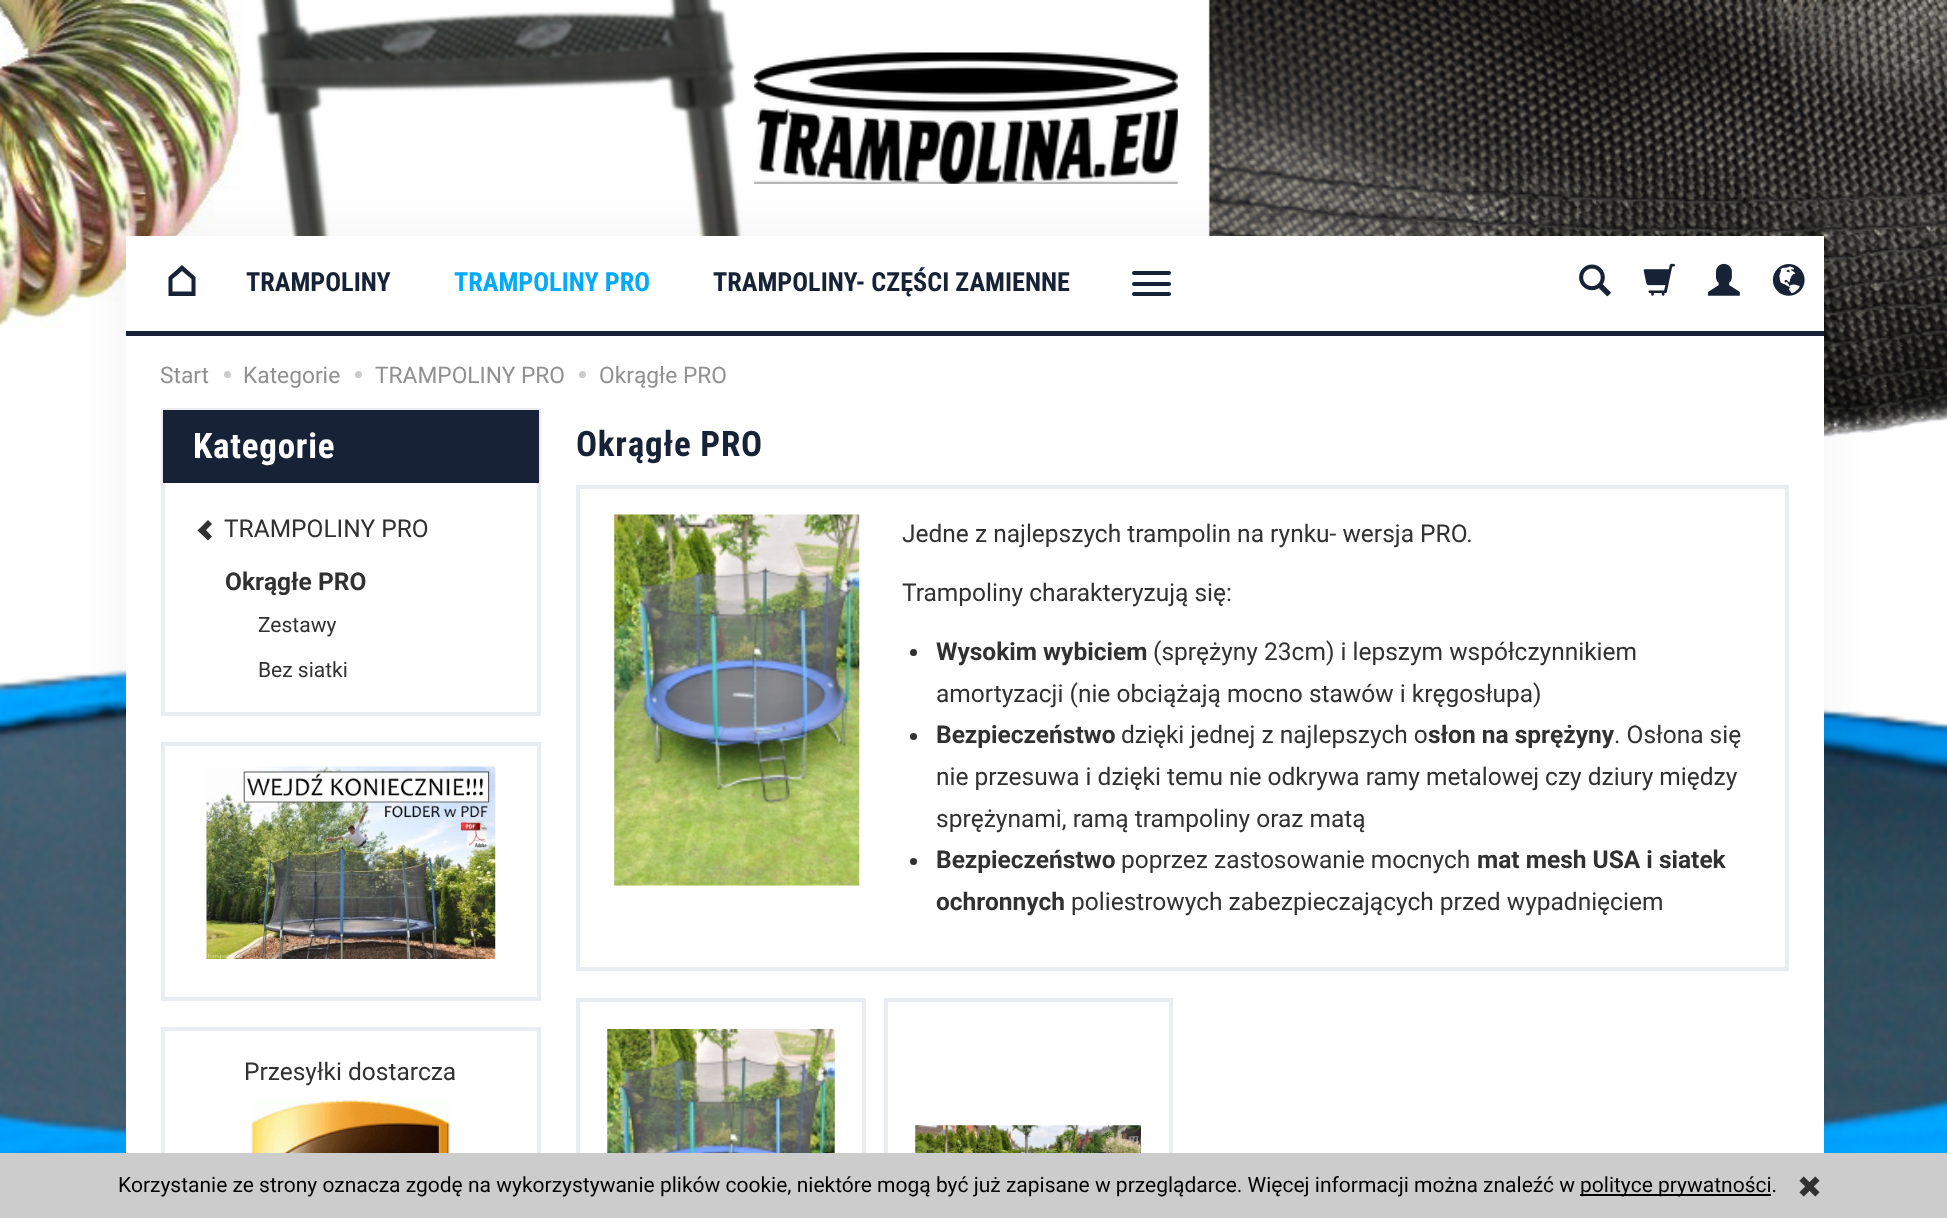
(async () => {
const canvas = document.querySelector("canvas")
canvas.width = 1947
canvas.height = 1218
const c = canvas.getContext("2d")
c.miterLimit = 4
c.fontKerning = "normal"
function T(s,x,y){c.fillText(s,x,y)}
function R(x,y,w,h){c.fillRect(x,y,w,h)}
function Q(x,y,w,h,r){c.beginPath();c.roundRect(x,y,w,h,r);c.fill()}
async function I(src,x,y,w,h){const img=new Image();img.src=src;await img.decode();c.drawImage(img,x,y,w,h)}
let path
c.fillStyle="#fff"
R(0,0,1947,1218)
await I("1.png",0,0,1947,1153)
c.fillStyle="#0000000d"
c.filter="blur(30.5px)"
c.beginPath()
c.rect(126,236,1698,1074)
c.fill()
c.filter="none"
await I("2.png",754,52,424,132)
c.fillStyle="#fff"
R(126,236,1698,917)
c.fillStyle="#172236"
R(126,331,1698,5)
path = new Path2D("M195.5 296h-27v-19l13.5-12l13.5 12zm-23-4.5h19v-12.5l-9.5-8l-9.5 8z")
c.fill(path)
c.font="bold 26.25px Roboto Condensed"
T("TRAMPOLINY",246,291)
c.fillStyle="#0af"
T("TRAMPOLINY PRO",454,291)
c.fillStyle="#172236"
T("TRAMPOLINY- CZĘŚCI ZAMIENNE",713,291)
Q(1132,271,39,4,2)
Q(1132,282,39,4,2)
Q(1132,292,39,4,2)
await I("3.png",1579,264,32,33)
await I("4.png",1643,263,32,33)
await I("5.png",1708,263,32,33)
await I("6.png",1772,264,33,32)
c.font="22.75px Roboto"
c.fillStyle="#909090"
T("Start",160,383)
c.fillStyle="#ccc"
c.beginPath()
c.arc(227.5,374.5,3.5,0,7)
c.fill()
c.fillStyle="#909090"
T("Kategorie",243,383)
c.fillStyle="#ccc"
c.beginPath()
c.arc(358.5,374.5,3.5,0,7)
c.fill()
c.fillStyle="#909090"
T("TRAMPOLINY PRO",375,383)
c.fillStyle="#ccc"
c.beginPath()
c.arc(582.5,374.5,3.5,0,7)
c.fill()
c.fillStyle="#909090"
T("Okrągłe PRO",599,383)
c.strokeStyle="#e9edf1"
c.lineWidth=4
c.strokeRect(163,410,376,304)
c.fillStyle="#172236"
R(163,410,376,73)
c.letterSpacing="0.75px"
c.font="bold 35px Roboto Condensed"
c.fillStyle="#fff"
T("Kategorie",193,458)
c.fillStyle="#313131"
path = new Path2D("M197.5 530.5l10.5 10l4-4l-6-6.5l6-6l-4-4z")
c.fill(path)
c.letterSpacing="0px"
c.font="24.5px Roboto"
T("TRAMPOLINY PRO",224,537)
c.font="bold 24.5px Roboto"
T("Okrągłe PRO",225,590)
c.font="21px Roboto"
T("Zestawy",258,632)
T("Bez siatki",258,677)
c.strokeRect(163,744,376,255)
await I("7.png",206,766,290,193)
c.strokeRect(163,1029,376,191)
c.font="24.5px Roboto"
T("Przesyłki dostarcza",244,1080)
await I("8.png",251,1100,199,53)
c.letterSpacing="0.75px"
c.font="bold 35px Roboto Condensed"
c.fillStyle="#172236"
T("Okrągłe PRO",576,456)
c.strokeRect(578,487,1209,482)
await I("9.png",614,514,246,372)
c.letterSpacing="0px"
c.font="24.5px Roboto"
c.fillStyle="#313131"
T("Jedne z najlepszych trampolin na rynku- wersja PRO.",902,542)
T("Trampoliny charakteryzują się:",902,601)
c.beginPath()
c.arc(913.5,652.5,3.5,0,7)
c.fill()
c.font="bold 24.5px Roboto"
T("Wysokim wybiciem",936,660)
c.font="24.5px Roboto"
T("(sprężyny 23cm) i lepszym współczynnikiem",1153,660)
T("amortyzacji (nie obciążają mocno stawów i kręgosłupa)",936,702)
c.beginPath()
c.arc(913.5,736.5,3.5,0,7)
c.fill()
c.font="bold 24.5px Roboto"
T("Bezpieczeństwo",936,743)
c.font="24.5px Roboto"
T("dzięki jednej z najlepszych o",1121,743)
c.font="bold 24.5px Roboto"
T("słon na sprężyny",1428,743)
c.font="24.5px Roboto"
T(". Osłona się",1614,743)
T("nie przesuwa i dzięki temu nie odkrywa ramy metalowej czy dziury między",936,785)
T("sprężynami, ramą trampoliny oraz matą",936,827)
c.beginPath()
c.arc(913.5,861.5,3.5,0,7)
c.fill()
c.font="bold 24.5px Roboto"
T("Bezpieczeństwo",936,868)
c.font="24.5px Roboto"
T("poprzez zastosowanie mocnych",1121,868)
c.font="bold 24.5px Roboto"
T("mat mesh USA i siatek",1477,868)
T("ochronnych",936,910)
c.font="24.5px Roboto"
T("poliestrowych zabezpieczających przed wypadnięciem",1071,910)
c.strokeRect(578,1000,286,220)
await I("10.png",607,1029,228,124)
c.strokeRect(886,1000,285,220)
await I("11.png",915,1125,226,28)
c.fillStyle="#ccc"
R(0,1153,1947,65)
c.font="21px Roboto"
c.fillStyle="#000"
T("Korzystanie ze strony oznacza zgodę na wykorzystywanie plików cookie, niektóre mogą być już zapisane w przeglądarce. Więcej informacji można znaleźć w",118,1192)
R(1580,1194,191,2)
T("polityce prywatności.",1580,1192)
await I("12.png",1799,1176,21,21)
})()
